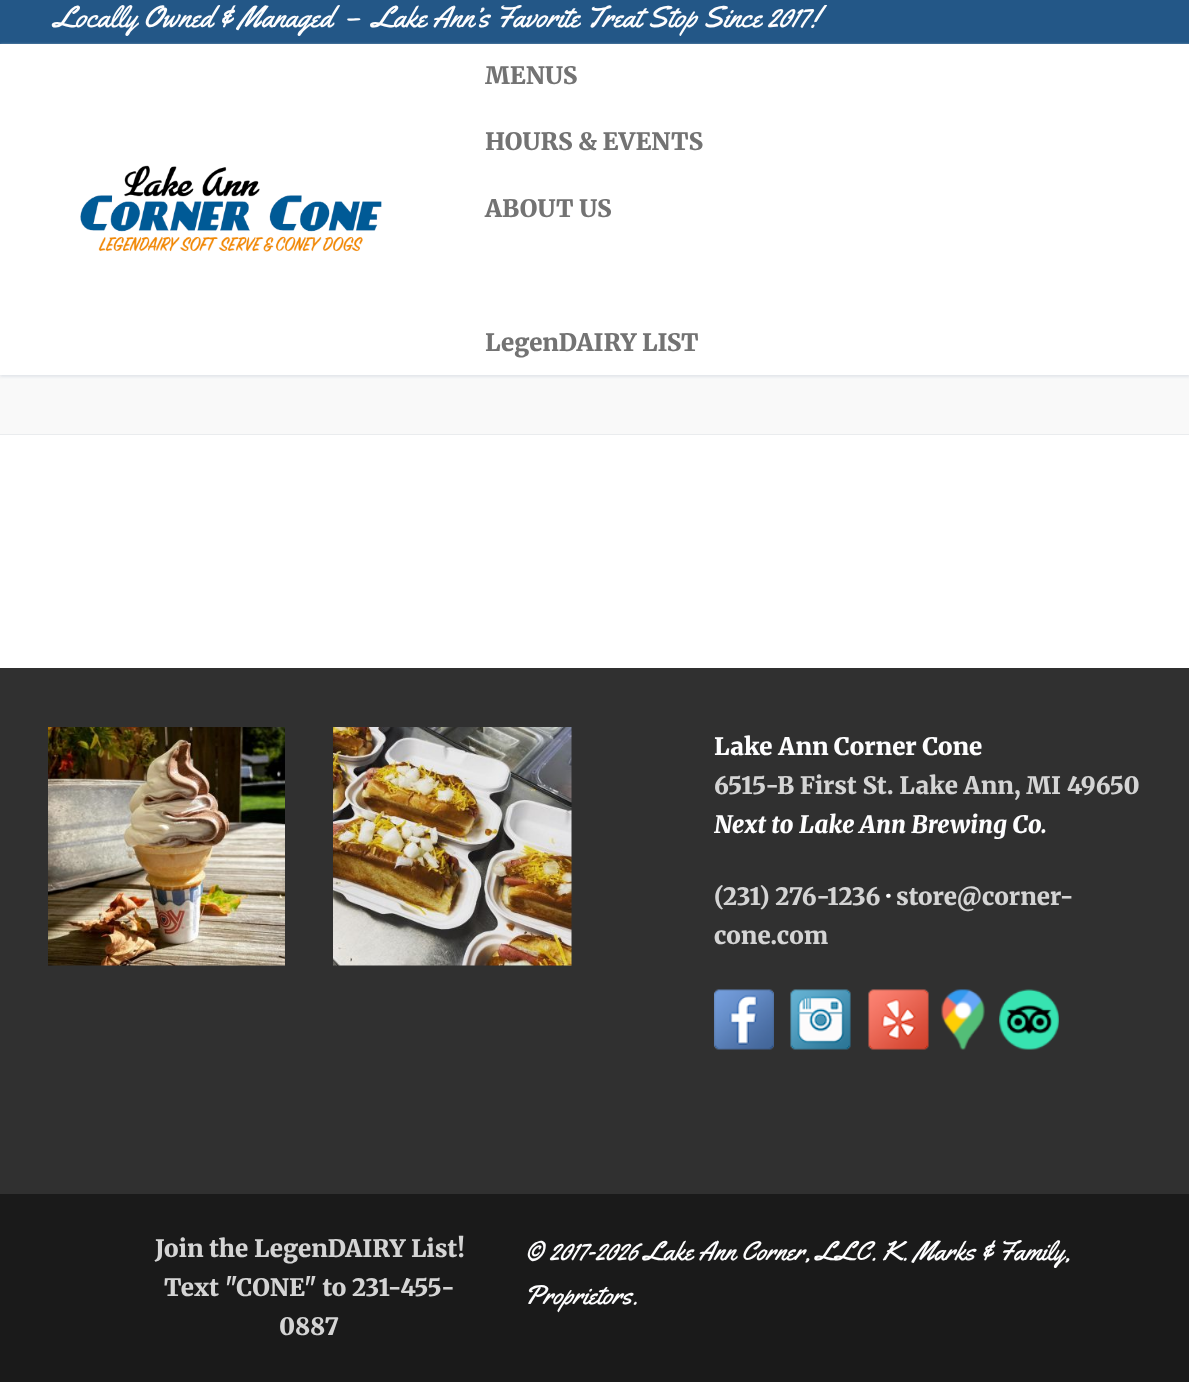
(async () => {
const canvas = document.querySelector("canvas")
canvas.width = 1189
canvas.height = 1382
const c = canvas.getContext("2d")
c.miterLimit = 4
c.fontKerning = "normal"
function T(s,x,y){c.fillText(s,x,y)}
function R(x,y,w,h){c.fillRect(x,y,w,h)}
async function I(src,x,y,w,h){const img=new Image();img.src=src;await img.decode();c.drawImage(img,x,y,w,h)}
let path
c.fillStyle="#fff"
R(0,0,1189,1382)
c.fillStyle="#235787"
R(0,0,1189,44)
c.font="30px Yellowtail"
c.fillStyle="#fdfdfe"
T("Locally Owned & Managed  –  Lake Ann’s Favorite Treat Stop Since 2017!",54,27)
c.fillStyle="#f9f9f9"
R(0,375,1189,59)
c.save()
path = new Path2D("M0 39h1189v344h-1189zm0 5h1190v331h-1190z")
c.clip(path,"evenodd")
c.fillStyle="#e1e5ea"
c.filter="blur(1.5px)"
c.beginPath()
c.rect(0,45,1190,332)
c.fill()
c.filter="none"
c.restore()
await I("1.png",80,165,302,87)
c.font="900 24px Merriweather"
c.fillStyle="#737373"
T("MENUS",485,84)
T("HOURS & EVENTS",485,150)
T("ABOUT US",485,217)
T("LegenDAIRY LIST",485,351)
c.fillStyle="#eaecee"
R(0,434,1189,1)
c.fillStyle="#303030"
R(0,668,1189,526)
await I("2.png",48,727,237,239)
await I("3.png",333,727,239,239)
c.fillStyle="#fdfdfe"
T("Lake Ann Corner Cone",714,755)
c.fillStyle="#d4d4d4"
T("6515-B First St. Lake Ann, MI 49650",714,794)
c.font="italic 900 24px Merriweather"
c.fillStyle="#fdfdfe"
T("Next to Lake Ann Brewing Co.",714,833)
c.font="900 24px Merriweather"
c.fillStyle="#d4d4d4"
T("(231) 276-1236",714,905)
c.fillStyle="#fdfdfe"
T("·",886,905)
c.fillStyle="#d4d4d4"
T("store@corner-",896,905)
T("cone.com",714,944)
await I("4.png",714,989,60,61)
await I("5.png",790,989,61,61)
await I("6.png",868,989,61,61)
await I("7.png",941,989,44,61)
await I("8.png",999,989,60,61)
c.fillStyle="#1a1a1a"
R(0,1194,1189,188)
c.fillStyle="#d4d4d4"
T("Join the LegenDAIRY List!",155,1257)
T("Text \"CONE\" to 231-455-",164,1296)
T("0887",279,1335)
c.font="27px Yellowtail"
c.fillStyle="#fdfdfe"
T("© 2017-2026 Lake Ann Corner, LLC. K. Marks & Family,",524,1260)
T("Proprietors.",524,1304)
})()
